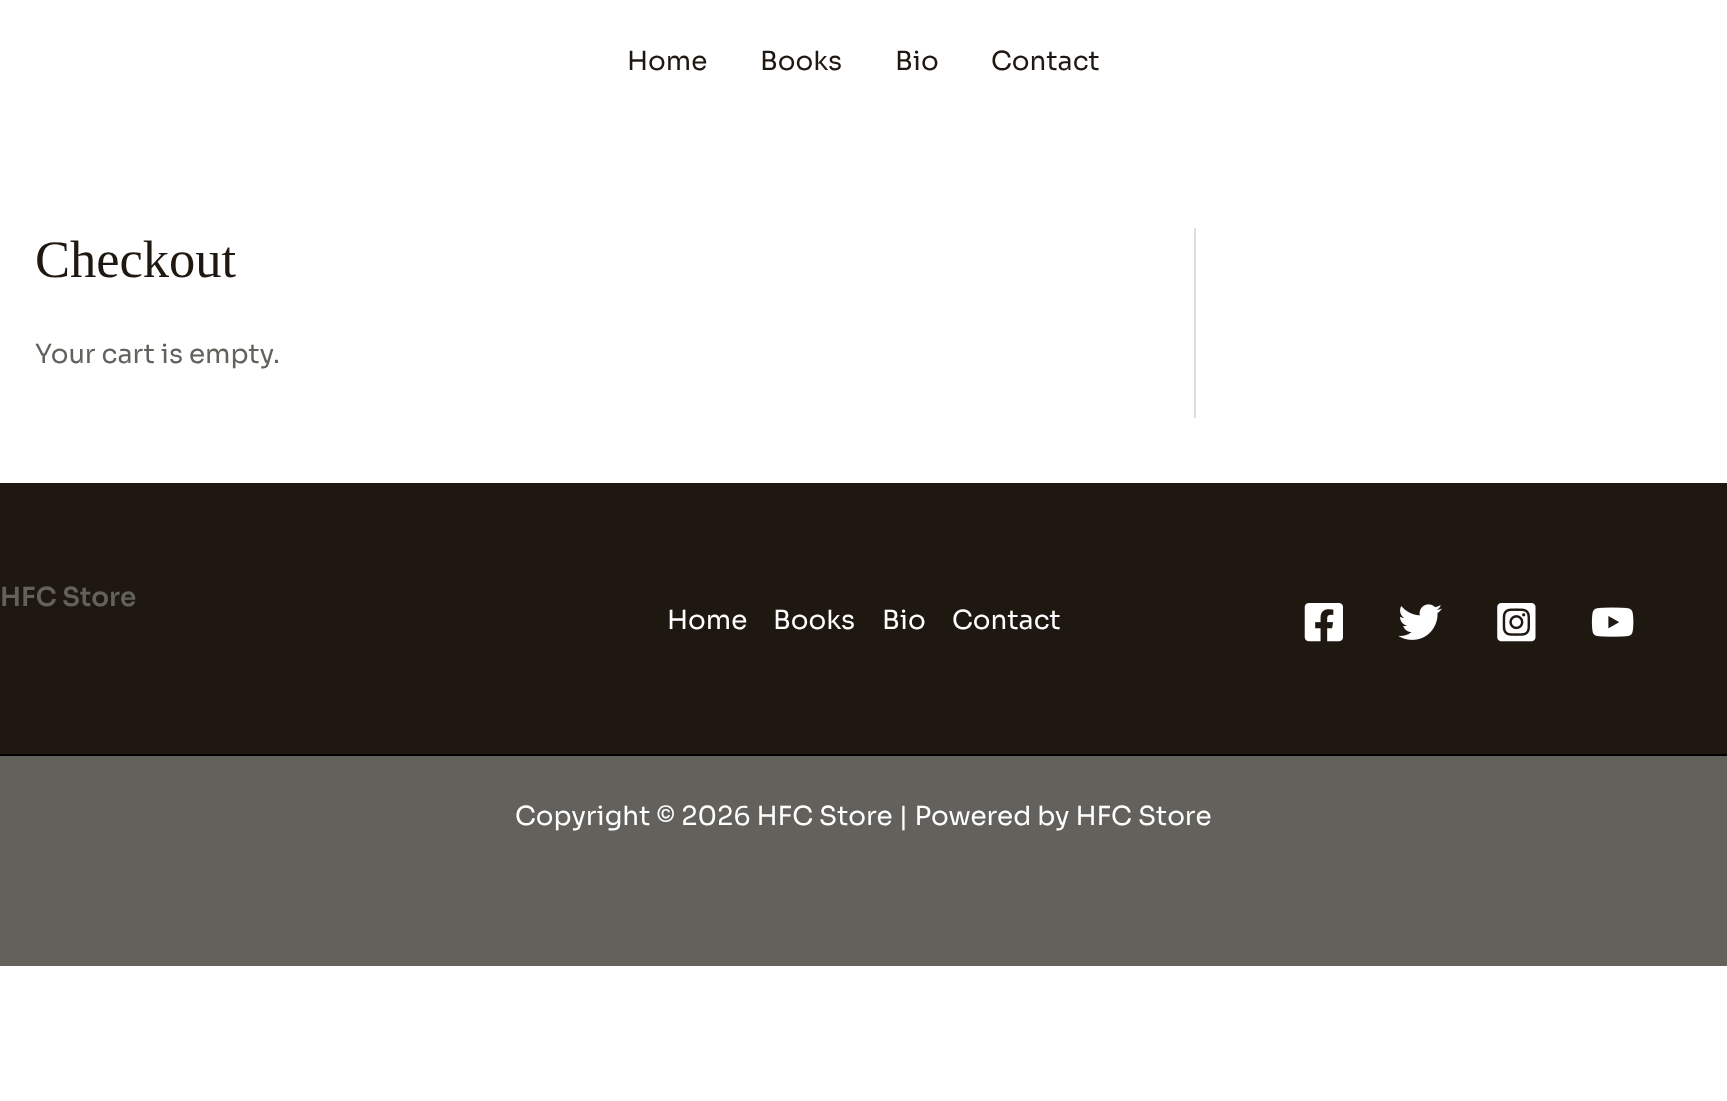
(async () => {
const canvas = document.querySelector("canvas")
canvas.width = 1727
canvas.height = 1101
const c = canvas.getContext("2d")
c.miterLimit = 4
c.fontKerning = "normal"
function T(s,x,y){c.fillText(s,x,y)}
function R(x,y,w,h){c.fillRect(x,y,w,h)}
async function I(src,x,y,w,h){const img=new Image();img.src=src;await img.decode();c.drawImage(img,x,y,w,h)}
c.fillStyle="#fff"
R(0,0,1727,1101)
c.font="26.25px Sora"
c.fillStyle="#1e1810"
T("Home",627,70)
T("Books",760,70)
T("Bio",895,70)
T("Contact",991,70)
c.font="52.5px Liberation Serif"
T("Checkout",35,277)
c.font="26.25px Sora"
c.fillStyle="#62615c"
T("Your cart is empty.",35,363)
c.fillStyle="#ddd"
R(1194,228,2,190)
c.fillStyle="#1e1810"
R(0,483,1727,271)
c.font="600 26.25px Sora"
c.fillStyle="#62615c"
T("HFC Store",0,606)
c.font="26.25px Sora"
c.fillStyle="#fff"
T("Home",667,629)
T("Books",773,629)
T("Bio",882,629)
T("Contact",952,629)
await I("1.png",1304,603,39,39)
await I("2.png",1398,604,44,36)
await I("3.png",1497,603,39,39)
await I("4.png",1591,607,43,30)
c.fillStyle="#62615c"
R(0,756,1727,210)
c.fillStyle="#000"
R(0,754,1727,2)
c.fillStyle="#fff"
T("Copyright © 2026 HFC Store | Powered by HFC Store",515,825)
})()
